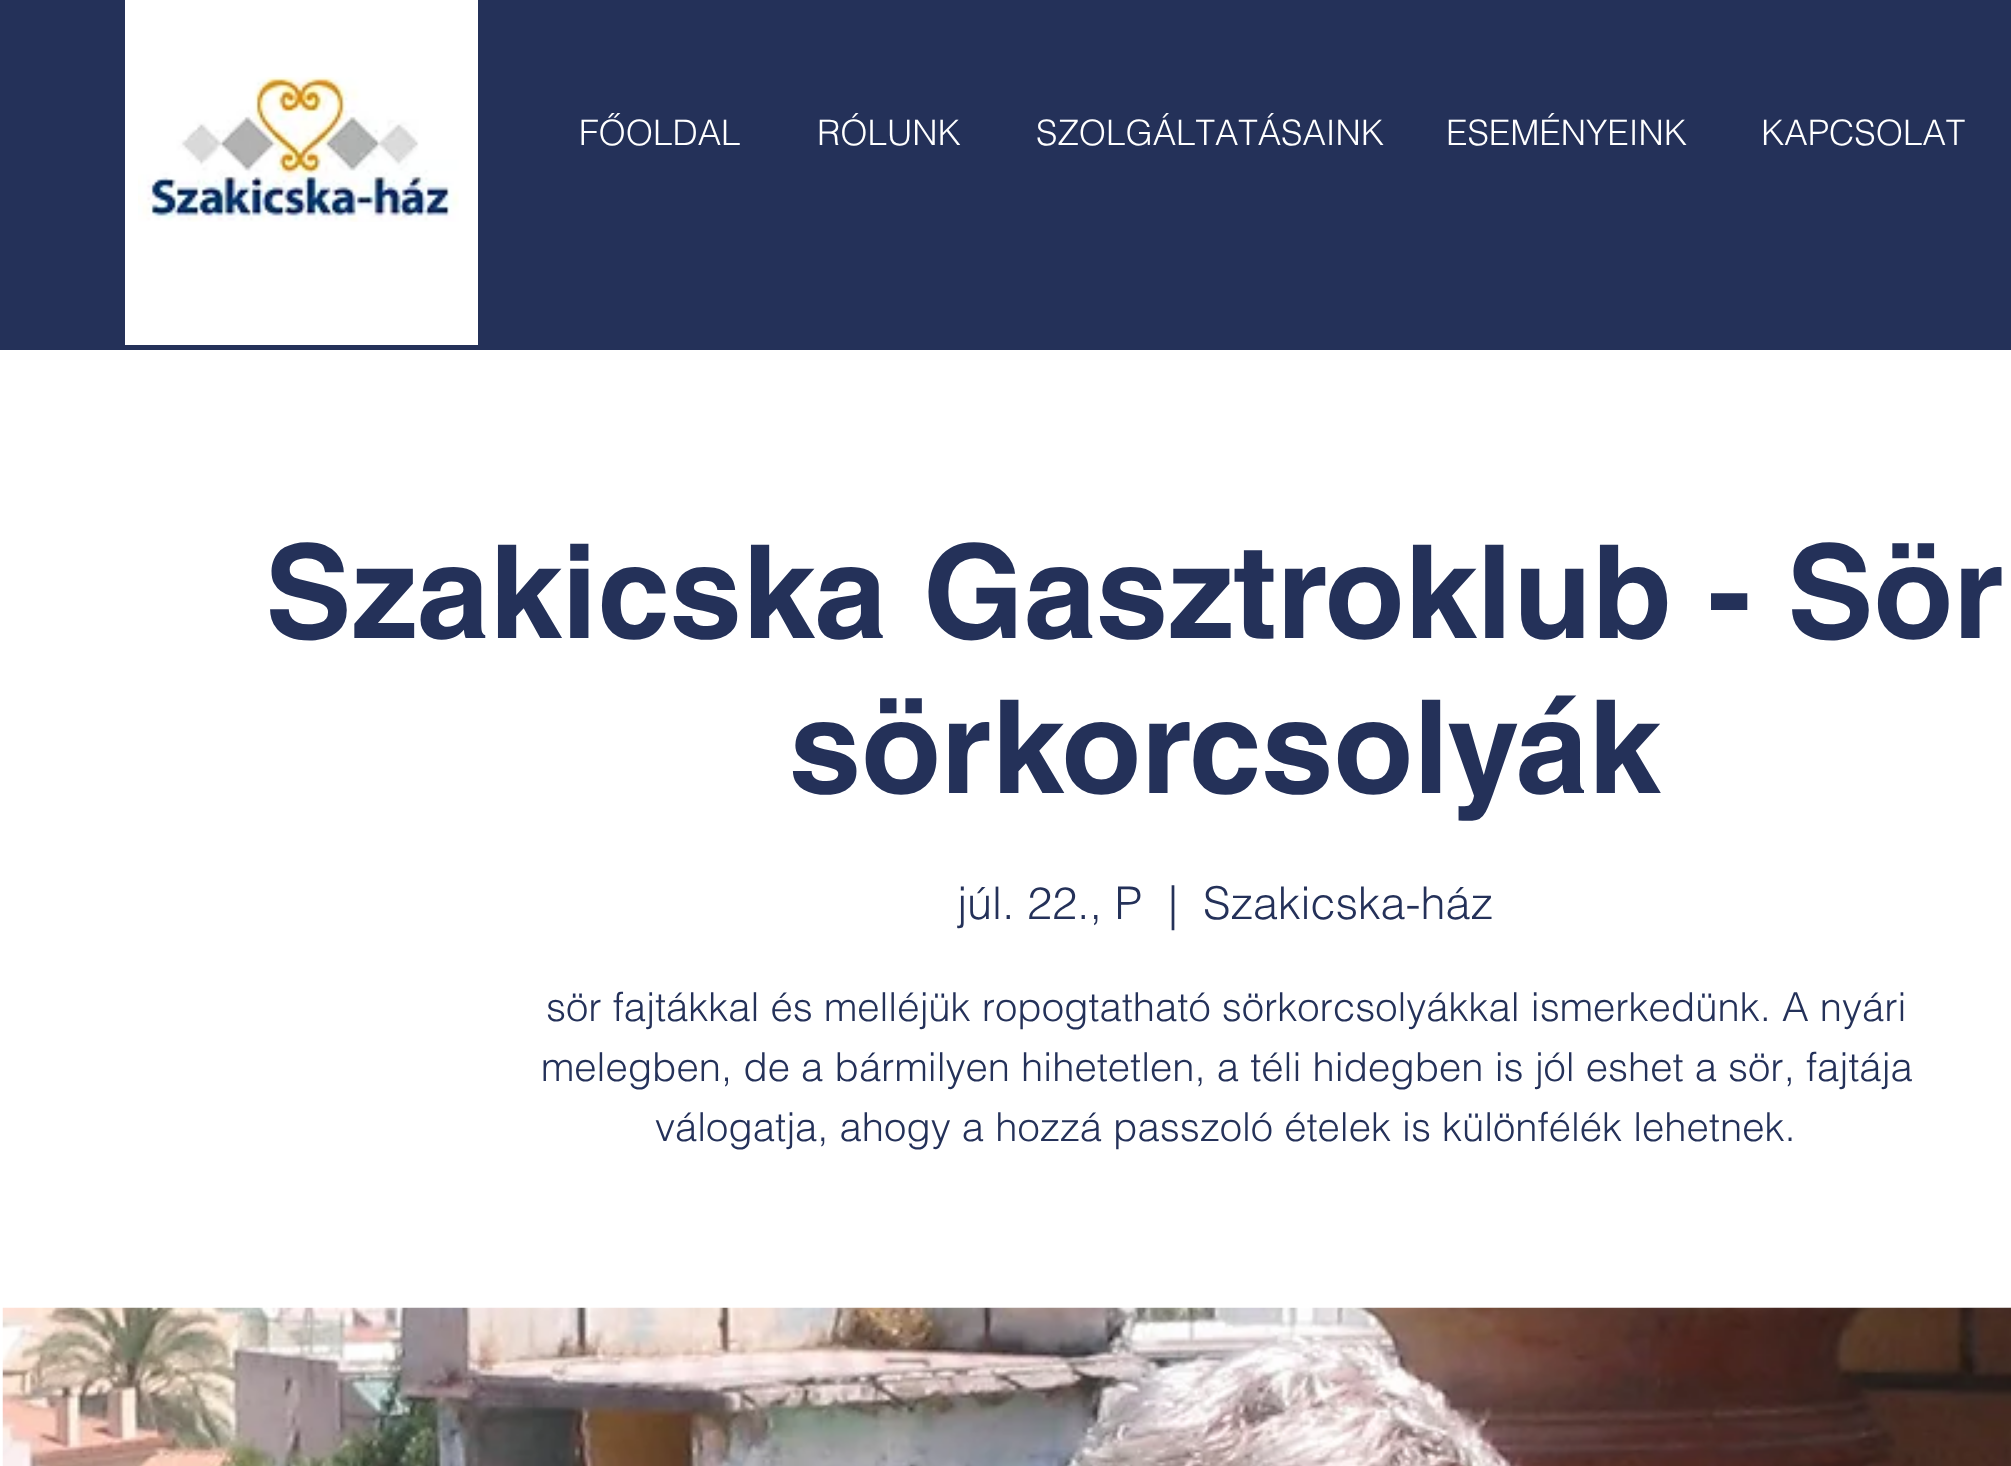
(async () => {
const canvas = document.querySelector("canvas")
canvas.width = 2011
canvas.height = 1466
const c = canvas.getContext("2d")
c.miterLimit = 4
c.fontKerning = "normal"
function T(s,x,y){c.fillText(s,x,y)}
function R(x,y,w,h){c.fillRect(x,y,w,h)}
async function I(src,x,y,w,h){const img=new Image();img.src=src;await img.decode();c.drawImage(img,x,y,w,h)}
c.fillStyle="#fff"
R(0,0,2011,1466)
c.fillStyle="#243159"
R(0,0,2011,350)
c.fillStyle="#fff"
R(125,0,353,345)
await I("1.png",138,77,321,145)
c.font="300 35px helvetica"
T("FŐOLDAL",579,145)
T("RÓLUNK",817,145)
T("SZOLGÁLTATÁSAINK",1036,145)
T("ESEMÉNYEINK",1446,145)
T("KAPCSOLAT",1761,145)
c.font="bold 130px helvetica"
c.fillStyle="#243159"
T("Szakicska Gasztroklub - Sör",265,638)
T("sörkorcsolyák",789,793)
c.font="300 45px helvetica"
T("júl. 22., P",957,919)
T("|",1168,919)
T("Szakicska-ház",1203,919)
c.font="300 40px helvetica"
T("sör fajtákkal és melléjük ropogtatható sörkorcsolyákkal ismerkedünk. A nyári",546,1021)
T("melegben, de a bármilyen hihetetlen, a téli hidegben is jól eshet a sör, fajtája",541,1081)
T("válogatja, ahogy a hozzá passzoló ételek is különfélék lehetnek.",655,1141)
await I("2.png",2,1307,2009,159)
})()
